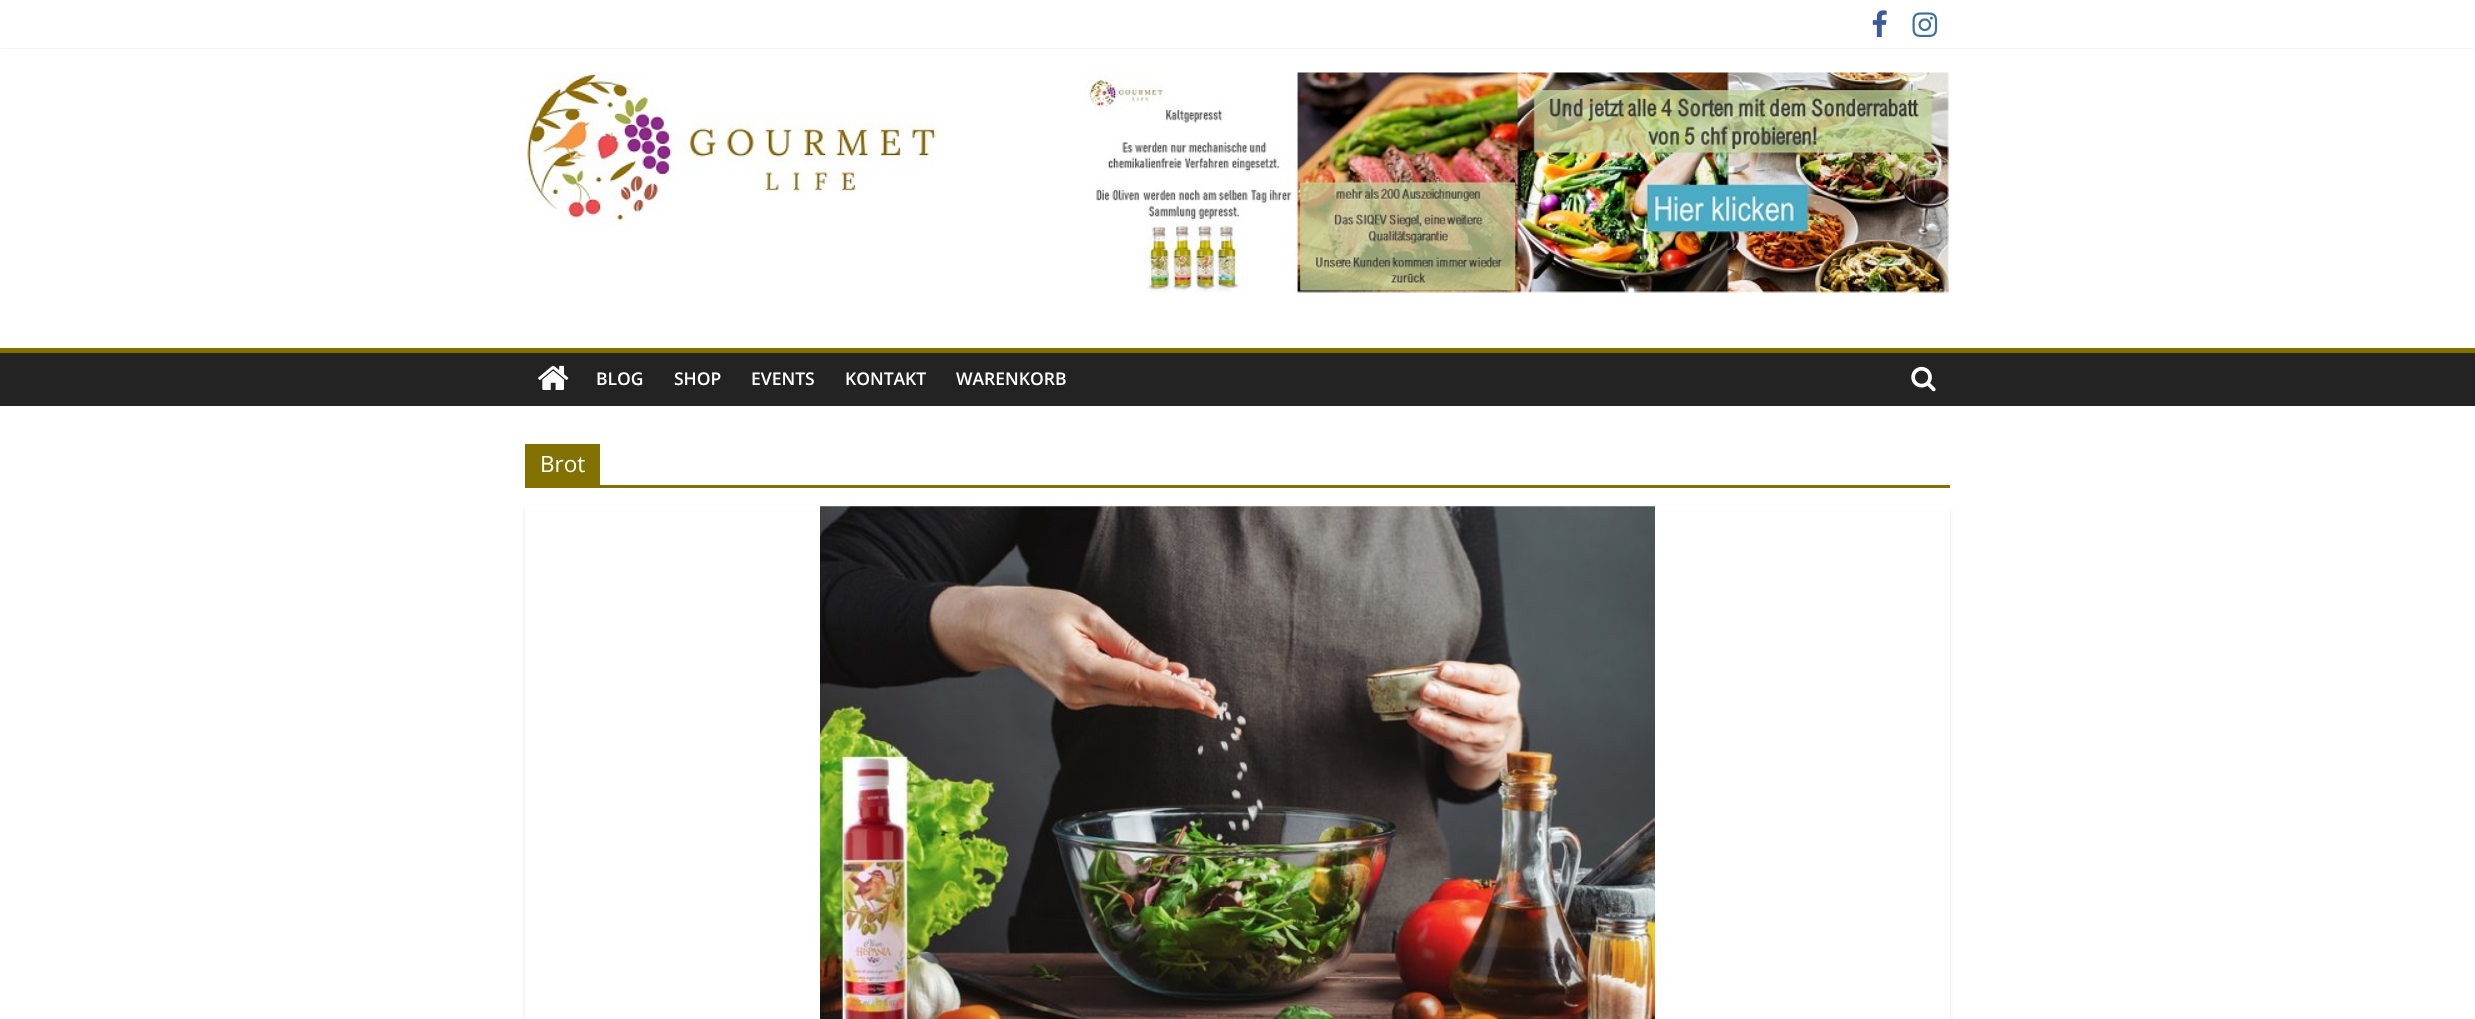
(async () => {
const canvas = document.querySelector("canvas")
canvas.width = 2475
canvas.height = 1019
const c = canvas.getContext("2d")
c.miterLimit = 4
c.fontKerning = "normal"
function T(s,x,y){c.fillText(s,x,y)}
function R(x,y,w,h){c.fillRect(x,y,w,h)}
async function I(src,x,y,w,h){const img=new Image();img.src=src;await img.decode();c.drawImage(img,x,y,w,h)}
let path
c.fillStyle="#fff"
R(0,0,2475,1019)
c.fillStyle="#0000001a"
c.filter="blur(1px)"
c.beginPath()
c.rect(0,0,2475,48)
c.fill()
c.filter="none"
c.fillStyle="#fff"
R(0,0,2475,48)
await I("1.png",1872,10,15,28)
await I("2.png",1912,12,26,26)
await I("3.png",525,72,413,154)
await I("4.png",1085,72,865,222)
c.fillStyle="#232323"
R(0,353,2475,53)
c.fillStyle="#827000"
R(0,348,2475,5)
await I("5.png",538,365,31,25)
c.font="600 17.5px Open Sans"
c.fillStyle="#fff"
T("BLOG",596,385)
T("SHOP",674,385)
T("EVENTS",751,385)
T("KONTAKT",845,385)
T("WARENKORB",956,385)
await I("6.png",1911,366,25,26)
c.fillStyle="#827000"
R(525,485,1425,3)
R(525,444,75,41)
c.font="22.5px Open Sans"
c.fillStyle="#fff"
T("Brot",540,472)
c.save()
path = new Path2D("M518 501h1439v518h-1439zm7 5h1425v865h-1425z")
c.clip(path,"evenodd")
c.fillStyle="#0000001a"
c.filter="blur(2px)"
c.beginPath()
c.rect(525,508,1425,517)
c.fill()
c.filter="none"
c.restore()
await I("7.png",820,506,835,513)
})()
